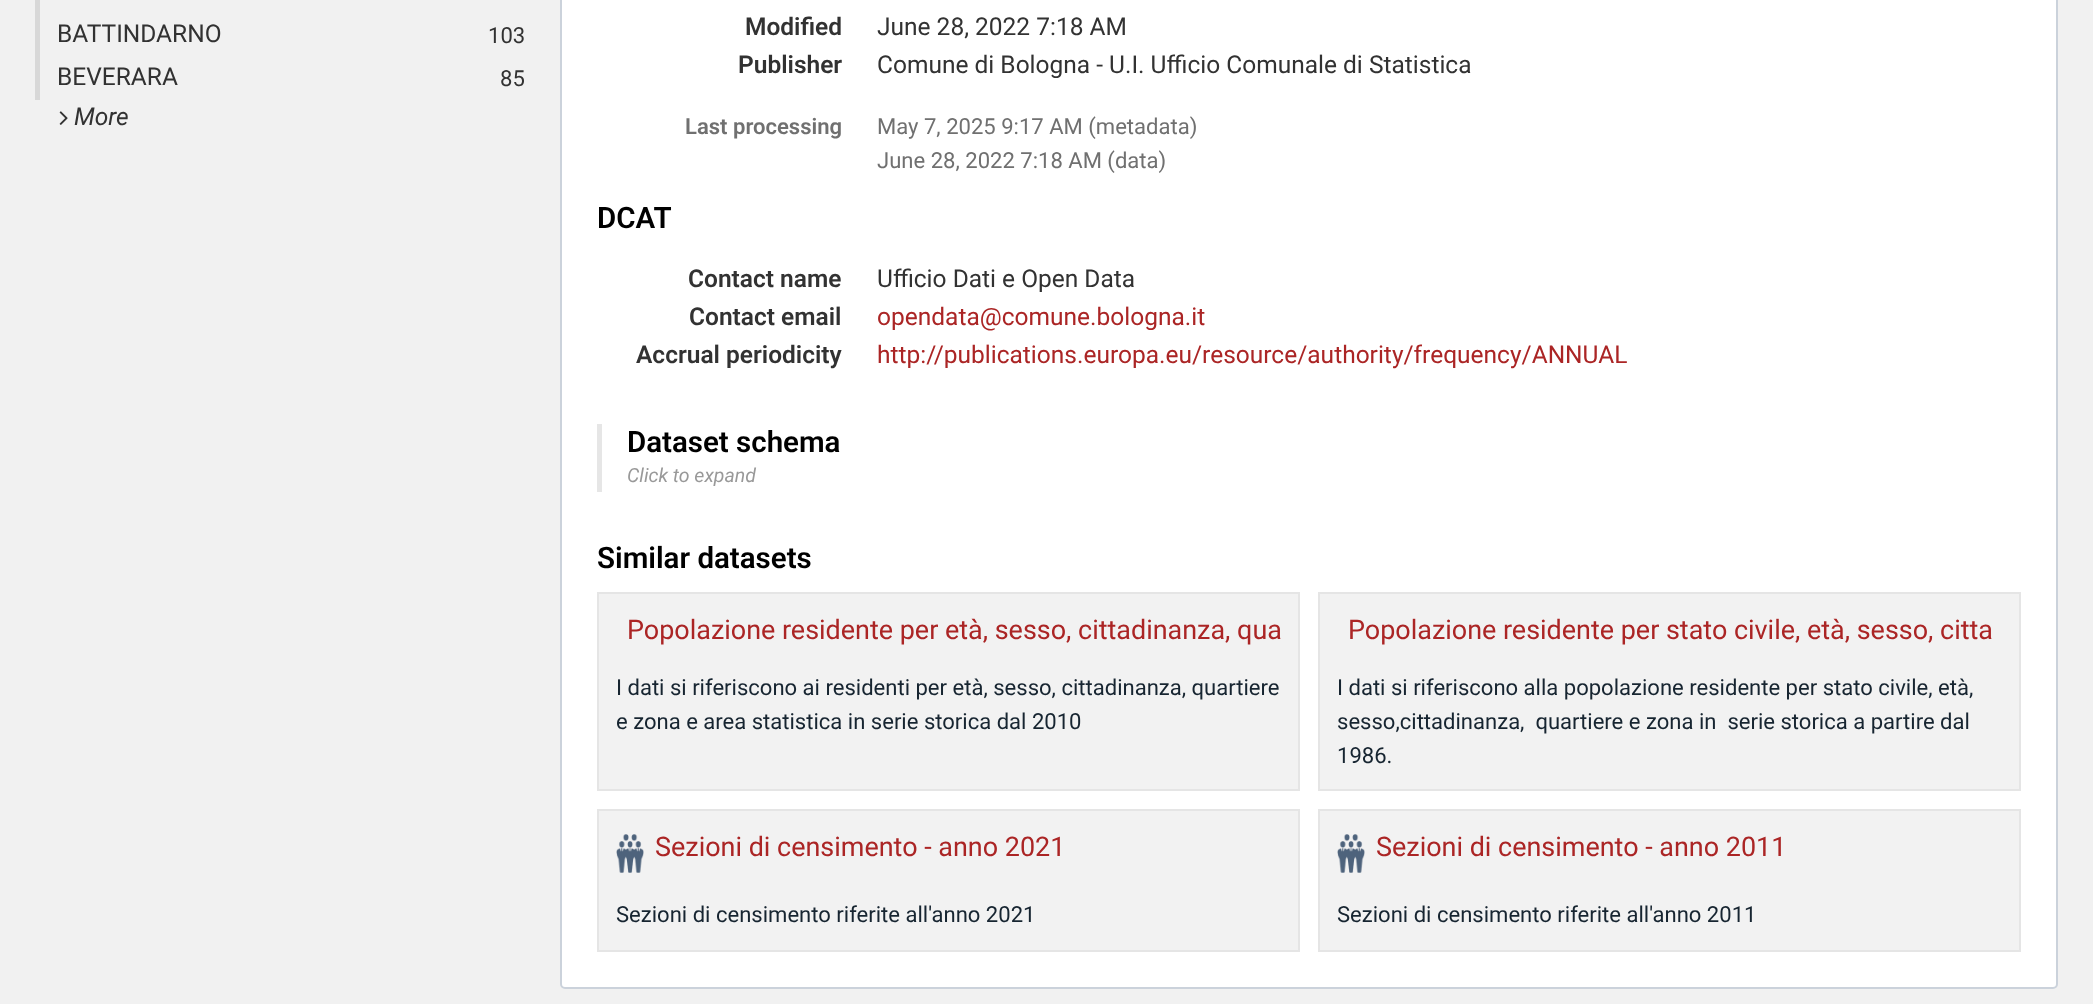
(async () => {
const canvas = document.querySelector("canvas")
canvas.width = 2093
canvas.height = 1004
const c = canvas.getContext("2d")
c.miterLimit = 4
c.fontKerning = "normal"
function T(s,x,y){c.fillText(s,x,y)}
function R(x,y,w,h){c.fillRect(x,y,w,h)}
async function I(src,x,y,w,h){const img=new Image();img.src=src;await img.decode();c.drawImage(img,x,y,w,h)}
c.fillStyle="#f1f1f1"
R(0,0,2093,1004)
c.fillStyle="#d8d8d8"
R(35,0,5,100)
c.font="24.5px Roboto"
c.fillStyle="#323232"
T("BATTINDARNO",57,42)
c.font="22.05px Roboto"
T("103",488,43)
c.font="24.5px Roboto"
T("BEVERARA",57,85)
c.font="22.05px Roboto"
T("85",500,86)
await I("1.png",59,111,9,14)
c.font="italic 24.5px Roboto"
T("More",74,125)
c.fillStyle="#fff"
c.beginPath()
c.roundRect(561,-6,1496,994,4)
c.fill()
c.strokeStyle="#cbd2db"
c.lineWidth=2
c.stroke()
c.font="600 24.5px Roboto"
c.fillStyle="#323232"
T("Modified",745,35)
c.font="24.5px Roboto"
T("June 28, 2022 7:18 AM",877,35)
c.font="600 24.5px Roboto"
T("Publisher",738,73)
c.font="24.5px Roboto"
T("Comune di Bologna - U.I. Ufficio Comunale di Statistica",877,73)
c.font="600 22.05px Roboto"
c.fillStyle="#707070"
T("Last processing",685,134)
c.font="22.05px Roboto"
T("May 7, 2025 9:17 AM (metadata)",877,134)
T("June 28, 2022 7:18 AM (data)",877,168)
c.font="600 29.5px Roboto"
c.fillStyle="#000"
T("DCAT",597,228)
c.font="600 24.5px Roboto"
c.fillStyle="#323232"
T("Contact name",688,287)
c.font="24.5px Roboto"
T("Ufficio Dati e Open Data",877,287)
c.font="600 24.5px Roboto"
T("Contact email",689,325)
c.font="24.5px Roboto"
c.fillStyle="#ab2525"
T("opendata@comune.bologna.it",877,325)
c.font="600 24.5px Roboto"
c.fillStyle="#323232"
T("Accrual periodicity",636,363)
c.font="24.5px Roboto"
c.fillStyle="#ab2525"
T("http://publications.europa.eu/resource/authority/frequency/ANNUAL",877,363)
c.fillStyle="#e6e6e6"
R(597,424,5,68)
c.font="600 29.5px Roboto"
c.fillStyle="#000"
T("Dataset schema",627,452)
c.font="italic 19.5px Roboto"
c.fillStyle="#999"
T("Click to expand",627,482)
c.font="600 29.5px Roboto"
c.fillStyle="#000"
T("Similar datasets",597,568)
c.fillStyle="#f2f2f2"
c.beginPath()
c.rect(598,593,701,197)
c.fill()
c.strokeStyle="#e5e5e5"
c.stroke()
c.font="26.95px Roboto"
c.fillStyle="#ab2525"
T("Popolazione residente per età, sesso, cittadinanza, qua",627,639)
c.font="22.05px Roboto"
c.fillStyle="#172531"
T("I dati si riferiscono ai residenti per età, sesso, cittadinanza, quartiere",616,695)
T("e zona e area statistica in serie storica dal 2010",616,729)
c.fillStyle="#f2f2f2"
c.beginPath()
c.rect(1319,593,701,197)
c.fill()
c.stroke()
c.font="26.95px Roboto"
c.fillStyle="#ab2525"
T("Popolazione residente per stato civile, età, sesso, citta",1348,639)
c.font="22.05px Roboto"
c.fillStyle="#172531"
T("I dati si riferiscono alla popolazione residente per stato civile, età,",1337,695)
T("sesso,cittadinanza,  quartiere e zona in  serie storica a partire dal",1337,729)
T("1986.",1337,763)
c.fillStyle="#f2f2f2"
c.beginPath()
c.rect(598,810,701,141)
c.fill()
c.stroke()
await I("2.png",616,834,28,39)
c.font="26.95px Roboto"
c.fillStyle="#ab2525"
T("Sezioni di censimento - anno 2021",655,856)
c.font="22.05px Roboto"
c.fillStyle="#172531"
T("Sezioni di censimento riferite all'anno 2021",616,922)
c.fillStyle="#f2f2f2"
c.beginPath()
c.rect(1319,810,701,141)
c.fill()
c.stroke()
await I("2.png",1337,834,28,39)
c.font="26.95px Roboto"
c.fillStyle="#ab2525"
T("Sezioni di censimento - anno 2011",1376,856)
c.font="22.05px Roboto"
c.fillStyle="#172531"
T("Sezioni di censimento riferite all'anno 2011",1337,922)
})()
